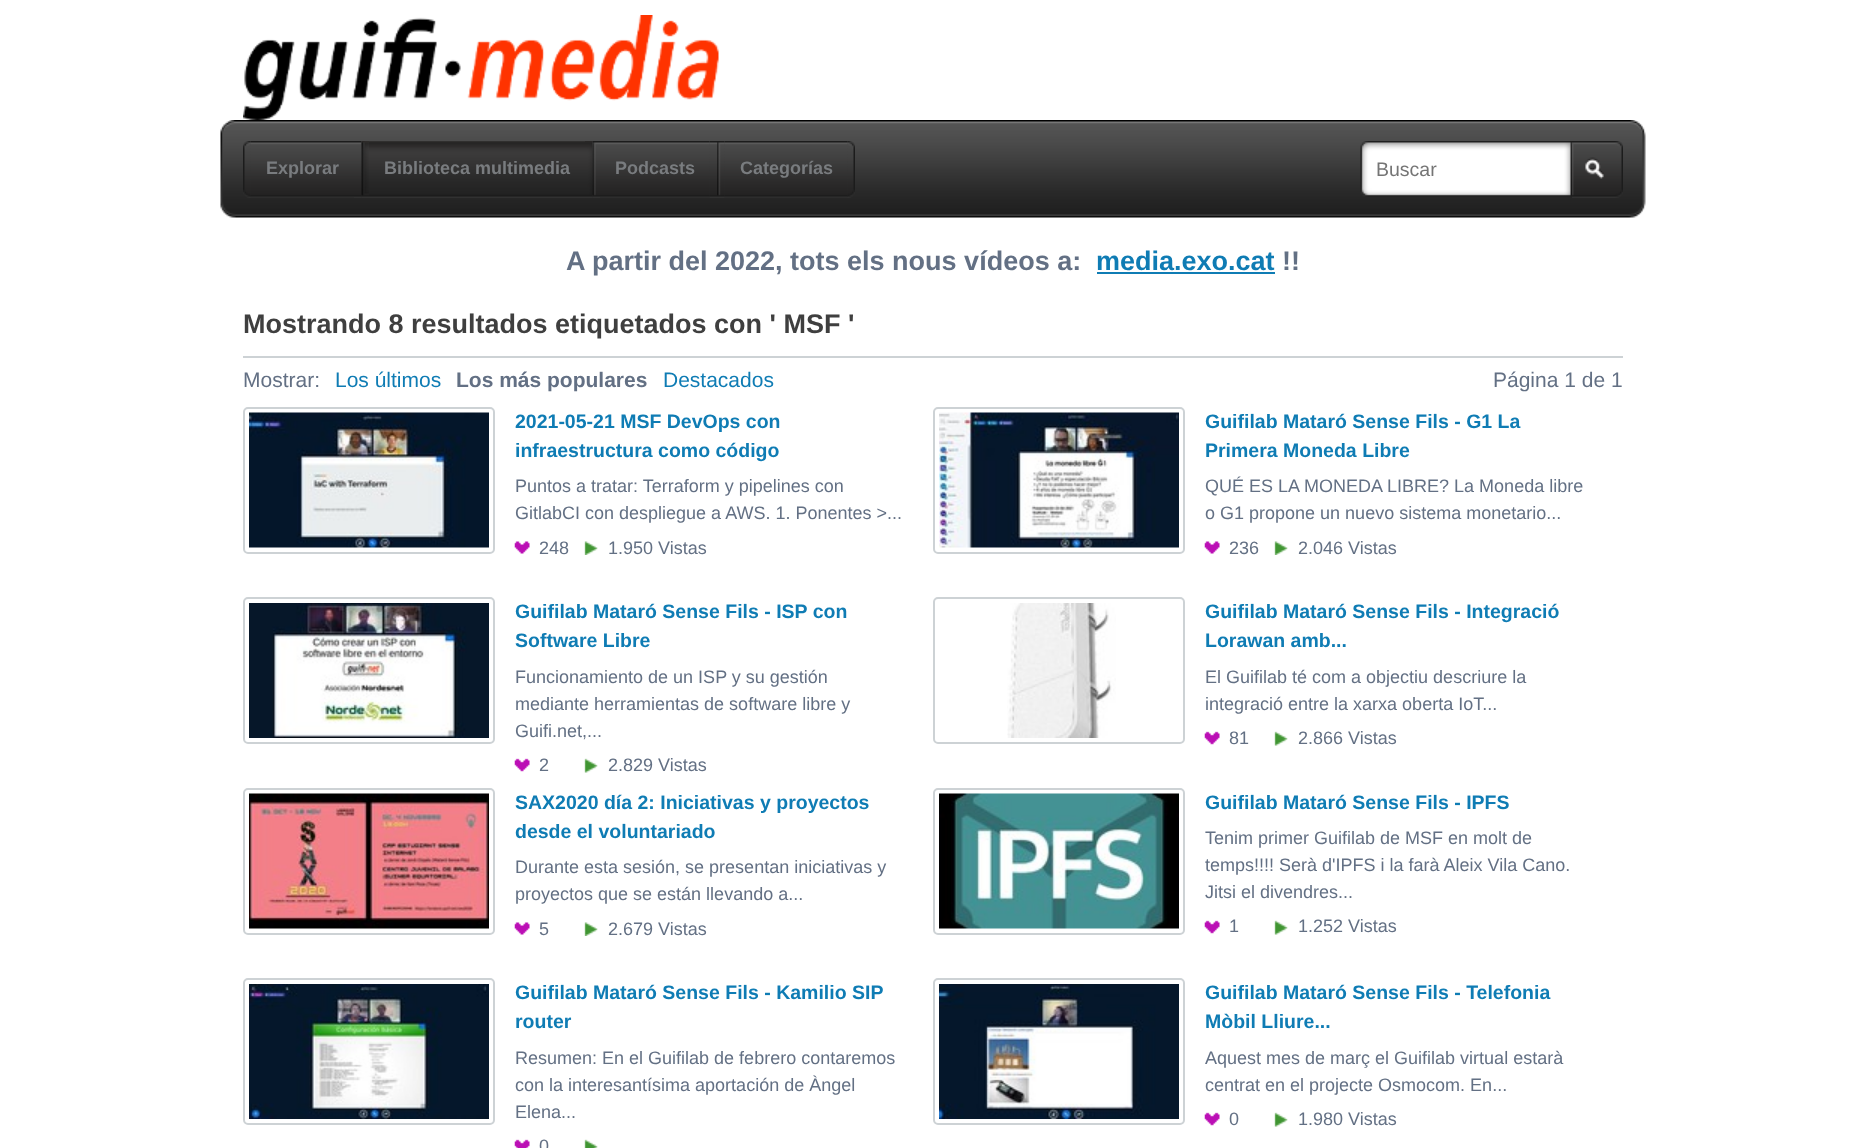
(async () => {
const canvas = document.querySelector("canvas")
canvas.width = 1865
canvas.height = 1148
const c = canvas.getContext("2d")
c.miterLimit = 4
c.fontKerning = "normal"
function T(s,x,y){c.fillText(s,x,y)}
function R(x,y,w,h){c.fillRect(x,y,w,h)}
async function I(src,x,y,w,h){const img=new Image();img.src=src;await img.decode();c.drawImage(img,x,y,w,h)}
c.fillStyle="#fff"
R(0,0,1865,1148)
await I("1.png",243,15,476,105)
await I("2.png",220,120,1426,98)
await I("3.png",243,141,8,57)
await I("4.png",250,141,104,57)
c.font="bold 18px Liberation Sans"
c.fillStyle="#797c7f"
T("Explorar",266,174)
await I("5.png",354,141,8,57)
await I("6.png",361,141,8,57)
await I("7.png",369,141,216,57)
T("Biblioteca multimedia",384,174)
await I("8.png",585,141,8,57)
await I("9.png",592,141,8,57)
await I("10.png",600,141,110,57)
T("Podcasts",615,174)
await I("11.png",709,141,8,57)
await I("12.png",717,141,8,57)
await I("13.png",724,141,124,57)
T("Categorías",740,174)
await I("14.png",847,141,8,57)
await I("15.png",1360,141,212,56)
c.font="19.5px Liberation Sans"
c.fillStyle="#757575"
T("Buscar",1376,176)
await I("16.png",1572,141,51,57)
c.font="bold 27px Liberation Sans"
c.fillStyle="#637084"
T("A partir del 2022, tots els nous vídeos a:",566,270)
c.fillStyle="#0f7cb4"
T("media.exo.cat",1096,270)
R(1097,272,178,2)
c.fillStyle="#637084"
T("!!",1282,270)
c.fillStyle="#3f3f3f"
T("Mostrando 8 resultados etiquetados con ' MSF '",243,333)
c.fillStyle="#cdd2d5"
R(243,356,1380,2)
c.font="21px Liberation Sans"
c.fillStyle="#637084"
T("Mostrar:",243,387)
c.fillStyle="#0f7cb4"
T("Los últimos",335,387)
c.font="bold 21px Liberation Sans"
c.fillStyle="#637084"
T("Los más populares",456,387)
c.font="21px Liberation Sans"
c.fillStyle="#0f7cb4"
T("Destacados",663,387)
c.fillStyle="#637084"
T("Página 1 de 1",1493,387)
c.beginPath()
c.roundRect(244,408,250,145,4)
c.strokeStyle="#cdd2d5"
c.lineWidth=2
c.stroke()
await I("17.png",249,412,240,136)
c.font="bold 19.5px Liberation Sans"
c.fillStyle="#0f7cb4"
T("2021-05-21 MSF DevOps con",515,428)
T("infraestructura como código",515,457)
c.font="18px Liberation Sans"
c.fillStyle="#637084"
T("Puntos a tratar: Terraform y pipelines con",515,492)
T("GitlabCI con despliegue a AWS. 1. Ponentes >...",515,519)
await I("18.png",514,541,16,13)
T("248",539,554)
await I("19.png",584,541,14,14)
T("1.950 Vistas",608,554)
c.beginPath()
c.roundRect(934,408,250,145,4)
c.stroke()
await I("20.png",939,412,240,136)
c.font="bold 19.5px Liberation Sans"
c.fillStyle="#0f7cb4"
T("Guifilab Mataró Sense Fils - G1 La",1205,428)
T("Primera Moneda Libre",1205,457)
c.font="18px Liberation Sans"
c.fillStyle="#637084"
T("QUÉ ES LA MONEDA LIBRE? La Moneda libre",1205,492)
T("o G1 propone un nuevo sistema monetario...",1205,519)
await I("21.png",1204,541,16,13)
T("236",1229,554)
await I("22.png",1274,541,14,14)
T("2.046 Vistas",1298,554)
c.beginPath()
c.roundRect(244,598,250,145,4)
c.stroke()
await I("23.png",249,603,240,135)
c.font="bold 19.5px Liberation Sans"
c.fillStyle="#0f7cb4"
T("Guifilab Mataró Sense Fils - ISP con",515,618)
T("Software Libre",515,647)
c.font="18px Liberation Sans"
c.fillStyle="#637084"
T("Funcionamiento de un ISP y su gestión",515,683)
T("mediante herramientas de software libre y",515,710)
T("Guifi.net,...",515,737)
await I("24.png",514,758,16,14)
T("2",539,771)
await I("25.png",584,758,14,15)
T("2.829 Vistas",608,771)
c.beginPath()
c.roundRect(934,598,250,145,4)
c.stroke()
await I("26.png",1007,603,109,135)
c.font="bold 19.5px Liberation Sans"
c.fillStyle="#0f7cb4"
T("Guifilab Mataró Sense Fils - Integració",1205,618)
T("Lorawan amb...",1205,647)
c.font="18px Liberation Sans"
c.fillStyle="#637084"
T("El Guifilab té com a objectiu descriure la",1205,683)
T("integració entre la xarxa oberta IoT...",1205,710)
await I("27.png",1204,731,16,14)
T("81",1229,744)
await I("28.png",1274,731,14,15)
T("2.866 Vistas",1298,744)
c.beginPath()
c.roundRect(244,789,250,145,4)
c.stroke()
await I("29.png",249,793,240,136)
c.font="bold 19.5px Liberation Sans"
c.fillStyle="#0f7cb4"
T("SAX2020 día 2: Iniciativas y proyectos",515,809)
T("desde el voluntariado",515,838)
c.font="18px Liberation Sans"
c.fillStyle="#637084"
T("Durante esta sesión, se presentan iniciativas y",515,873)
T("proyectos que se están llevando a...",515,900)
await I("18.png",514,922,16,13)
T("5",539,935)
await I("19.png",584,922,14,14)
T("2.679 Vistas",608,935)
c.beginPath()
c.roundRect(934,789,250,145,4)
c.stroke()
await I("30.png",939,793,240,136)
c.font="bold 19.5px Liberation Sans"
c.fillStyle="#0f7cb4"
T("Guifilab Mataró Sense Fils - IPFS",1205,809)
c.font="18px Liberation Sans"
c.fillStyle="#637084"
T("Tenim primer Guifilab de MSF en molt de",1205,844)
T("temps!!!! Serà d'IPFS i la farà Aleix Vila Cano.",1205,871)
T("Jitsi el divendres...",1205,898)
await I("27.png",1204,920,16,14)
T("1",1229,932)
await I("28.png",1274,920,14,15)
T("1.252 Vistas",1298,932)
c.beginPath()
c.roundRect(244,979,250,145,4)
c.stroke()
await I("31.png",249,984,240,135)
c.font="bold 19.5px Liberation Sans"
c.fillStyle="#0f7cb4"
T("Guifilab Mataró Sense Fils - Kamilio SIP",515,999)
T("router",515,1028)
c.font="18px Liberation Sans"
c.fillStyle="#637084"
T("Resumen: En el Guifilab de febrero contaremos",515,1064)
T("con la interesantísima aportación de Àngel",515,1091)
T("Elena...",515,1118)
await I("32.png",514,1139,16,9)
T("0",539,1152)
await I("33.png",584,1139,14,9)
c.beginPath()
c.roundRect(934,979,250,145,4)
c.stroke()
await I("34.png",939,984,240,135)
c.font="bold 19.5px Liberation Sans"
c.fillStyle="#0f7cb4"
T("Guifilab Mataró Sense Fils - Telefonia",1205,999)
T("Mòbil Lliure...",1205,1028)
c.font="18px Liberation Sans"
c.fillStyle="#637084"
T("Aquest mes de març el Guifilab virtual estarà",1205,1064)
T("centrat en el projecte Osmocom. En...",1205,1091)
await I("27.png",1204,1112,16,14)
T("0",1229,1125)
await I("28.png",1274,1112,14,15)
T("1.980 Vistas",1298,1125)
})()
